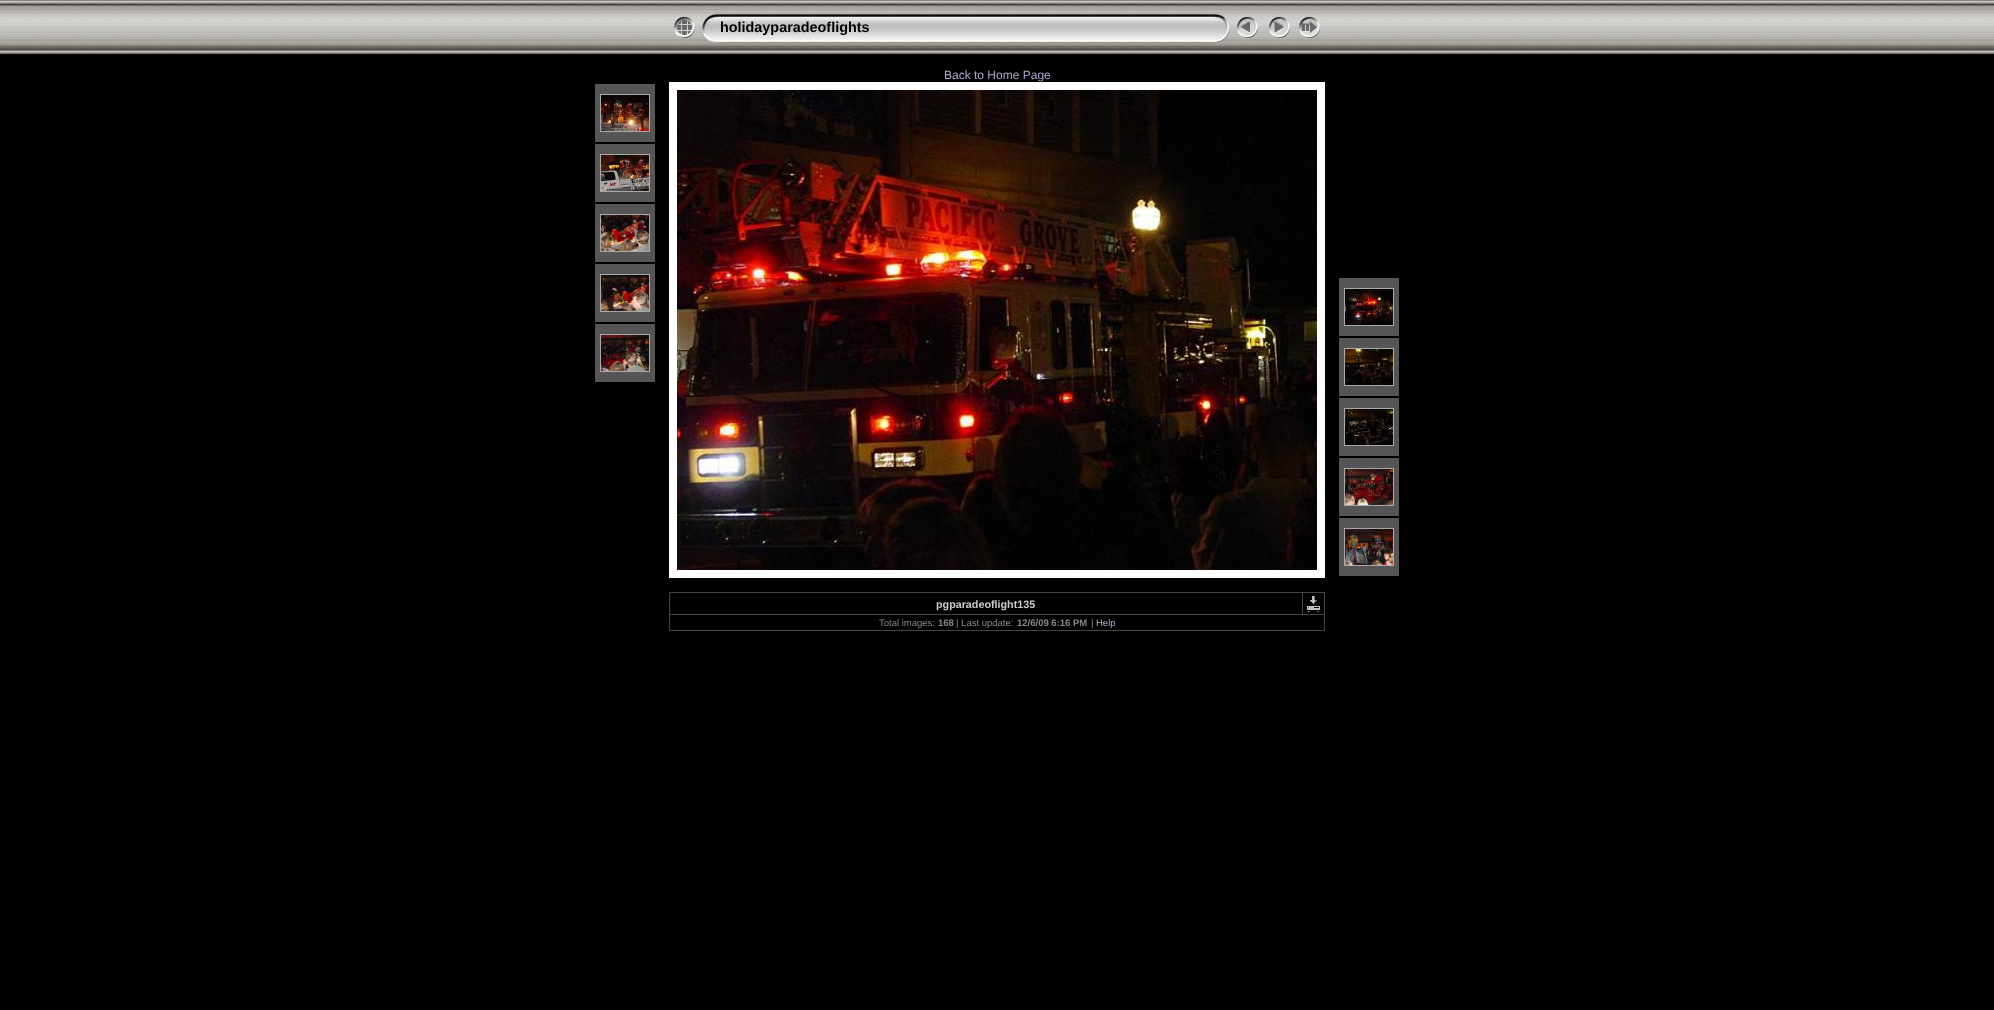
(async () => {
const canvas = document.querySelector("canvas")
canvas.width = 1994
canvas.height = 1010
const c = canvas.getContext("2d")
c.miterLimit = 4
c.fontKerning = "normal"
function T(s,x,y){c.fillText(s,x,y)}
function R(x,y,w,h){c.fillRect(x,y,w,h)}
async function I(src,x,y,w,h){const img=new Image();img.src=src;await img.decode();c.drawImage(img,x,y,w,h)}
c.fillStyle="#000"
R(0,0,1994,1010)
await I("1.png",0,0,1994,54)
await I("2.png",673,17,22,21)
await I("3.png",702,14,18,29)
await I("4.png",720,14,492,29)
c.font="bold 14.4px Liberation Sans"
T("holidayparadeoflights",720,32)
await I("5.png",1212,14,18,29)
await I("6.png",1236,17,22,21)
await I("7.png",1268,17,22,21)
await I("8.png",1298,17,22,21)
c.font="12px Liberation Sans"
c.fillStyle="#aac"
T("Back to Home Page",944,79)
c.fillStyle="#555"
R(595,84,60,58)
c.strokeStyle="#aaa"
c.strokeRect(600.5,94.5,49,37)
await I("9.png",601,95,48,36)
R(595,144,60,58)
c.strokeRect(600.5,154.5,49,37)
await I("10.png",601,155,48,36)
R(595,204,60,58)
c.strokeRect(600.5,214.5,49,37)
await I("11.png",601,215,48,36)
R(595,264,60,58)
c.strokeRect(600.5,274.5,49,37)
await I("12.png",601,275,48,36)
R(595,324,60,58)
c.strokeRect(600.5,334.5,49,37)
await I("13.png",601,335,48,36)
c.strokeStyle="#fff"
c.lineWidth=8
c.strokeRect(673,86,648,488)
await I("14.png",677,90,640,480)
R(1339,278,60,58)
c.strokeStyle="#aaa"
c.lineWidth=1
c.strokeRect(1344.5,288.5,49,37)
await I("15.png",1345,289,48,36)
R(1339,338,60,58)
c.strokeRect(1344.5,348.5,49,37)
await I("16.png",1345,349,48,36)
R(1339,398,60,58)
c.strokeRect(1344.5,408.5,49,37)
await I("17.png",1345,409,48,36)
R(1339,458,60,58)
c.strokeRect(1344.5,468.5,49,37)
await I("18.png",1345,469,48,36)
R(1339,518,60,58)
c.strokeRect(1344.5,528.5,49,37)
await I("19.png",1345,529,48,36)
c.fillStyle="#444"
R(669,592,656,1)
R(1324,592,1,39)
R(669,630,656,1)
R(669,592,1,39)
c.font="bold 10.75px Liberation Sans"
c.fillStyle="#ccc"
T("pgparadeoflight135",936,608)
c.fillStyle="#444"
R(669,614,656,1)
R(1302,592,1,23)
await I("20.png",1307,596,13,16)
c.font="9.5px Liberation Sans"
c.fillStyle="#888"
T("Total images:",879,626)
c.font="bold 9.5px Liberation Sans"
T("168",938,626)
c.font="9.5px Liberation Sans"
T("| Last update:",956,626)
c.font="bold 9.5px Liberation Sans"
T("12/6/09 6:16 PM",1017,626)
c.font="9.5px Liberation Sans"
T("|",1091,626)
c.fillStyle="#aac"
T("Help",1096,626)
})()
